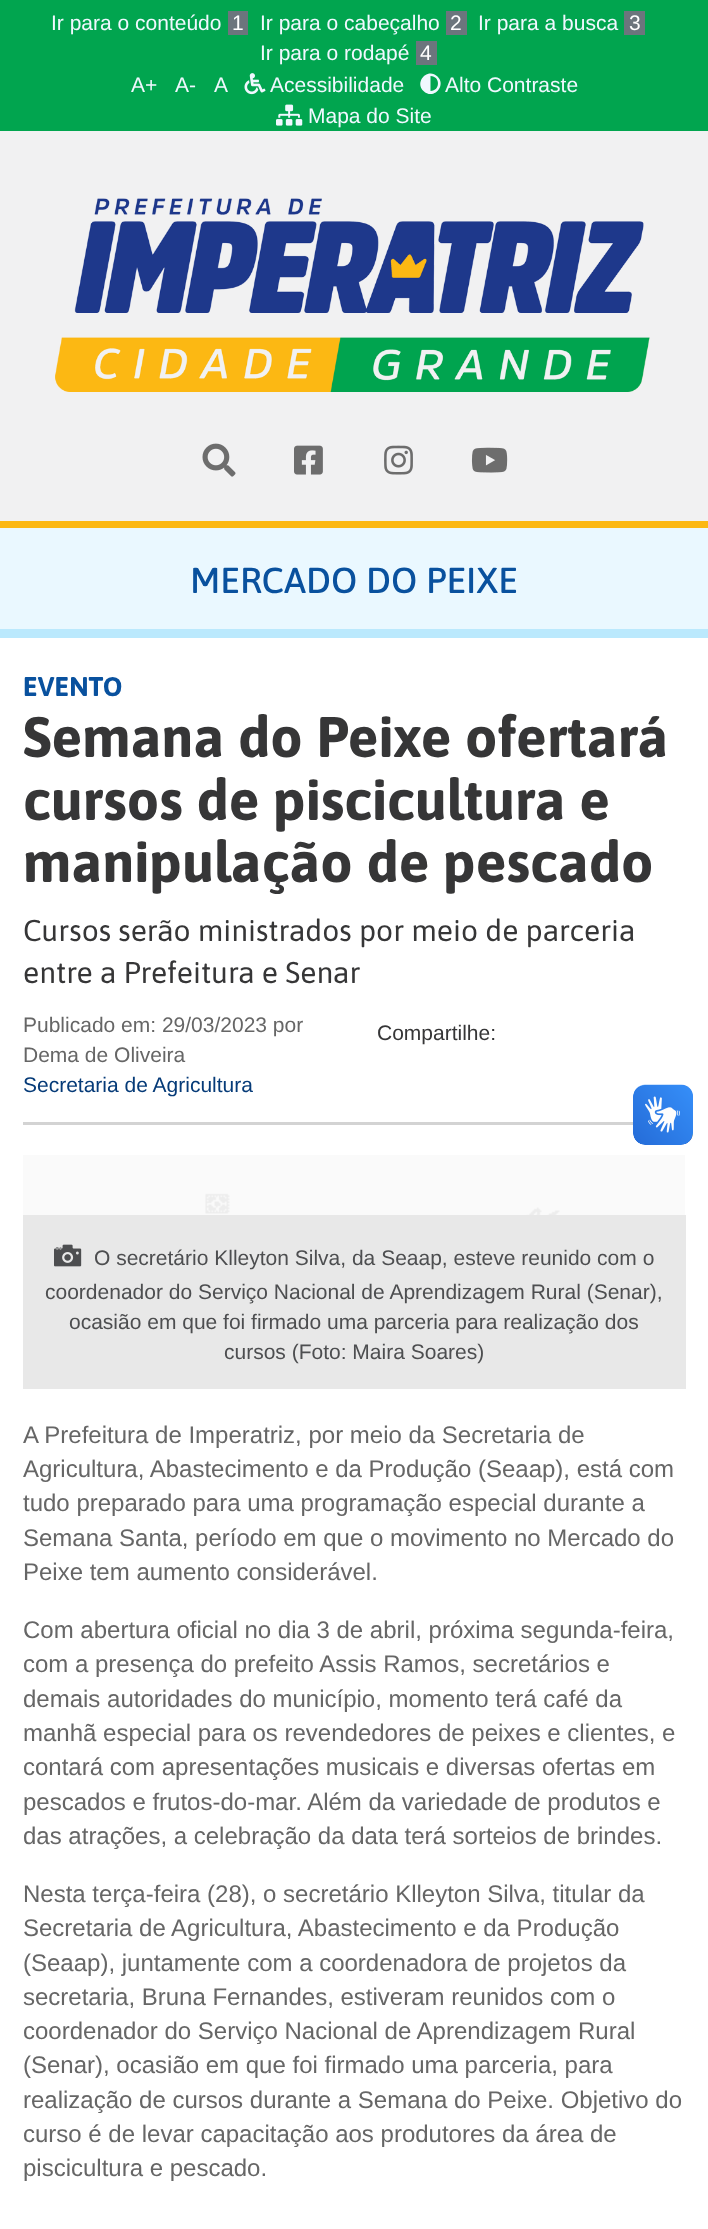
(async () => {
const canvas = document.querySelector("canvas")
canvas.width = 708
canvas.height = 2229
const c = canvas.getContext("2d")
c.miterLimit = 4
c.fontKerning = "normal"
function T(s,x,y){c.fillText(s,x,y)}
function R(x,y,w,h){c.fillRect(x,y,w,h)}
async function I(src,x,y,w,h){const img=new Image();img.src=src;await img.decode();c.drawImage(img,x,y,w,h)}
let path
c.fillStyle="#fff"
R(0,0,708,2229)
c.fillStyle="#01a54f"
R(0,0,708,131)
c.font="21px Liberation Sans"
c.fillStyle="#f0f8ff"
T("Ir para o conteúdo",51,30)
c.fillStyle="#6c757d"
R(228,11,20,24)
c.fillStyle="#fff"
T("1",232,30)
c.fillStyle="#f0f8ff"
T("Ir para o cabeçalho",260,30)
c.fillStyle="#6c757d"
R(446,11,21,24)
c.fillStyle="#fff"
T("2",450,30)
c.fillStyle="#f0f8ff"
T("Ir para a busca",478,30)
c.fillStyle="#6c757d"
R(624,11,21,24)
c.fillStyle="#fff"
T("3",629,30)
c.fillStyle="#f0f8ff"
T("Ir para o rodapé",260,60)
c.fillStyle="#6c757d"
R(416,41,21,24)
c.fillStyle="#fff"
T("4",420,60)
c.fillStyle="#f0f8ff"
T("A+",131,92)
T("A-",175,92)
T("A",214,92)
await I("1.png",244,73,22,22)
T("Acessibilidade",270,92)
path = new Path2D("M423.5 91c-9.5-9.5 4.5-24 14-14.5c9.5 9.5-4.5 24-14 14.5zm7 0c10 0 10-15 0-15z")
c.fill(path)
T("Alto Contraste",445,92)
await I("2.png",276,104,27,22)
T("Mapa do Site",308,123)
c.fillStyle="#f1f1f2"
R(0,131,708,390)
c.fillStyle="#fcb813"
R(0,521,708,7)
await I("3.png",55,198,595,194)
await I("4.png",202,443,34,34)
await I("5.png",294,445,29,30)
await I("6.png",384,445,29,30)
await I("7.png",471,447,37,26)
c.fillStyle="#eaf8ff"
R(0,528,708,101)
c.fillStyle="#bbe9fd"
R(0,629,708,9)
c.font="500 36px Asap"
c.fillStyle="#09519e"
T("MERCADO DO PEIXE",190,593)
c.fillStyle="#d3d3d3"
R(23,1122,610,3)
c.font="bold 27px Asap"
c.fillStyle="#09519e"
T("EVENTO",23,696)
c.font="bold 57px Asap"
c.fillStyle="#363637"
T("Semana do Peixe ofertará",23,757)
T("cursos de piscicultura e",23,820)
T("manipulação de pescado",23,882)
c.font="30px Asap"
T("Cursos serão ministrados por meio de parceria",23,941)
T("entre a Prefeitura e Senar",23,983)
c.font="21px Liberation Sans"
c.fillStyle="#666"
T("Publicado em: 29/03/2023 por",23,1032)
T("Dema de Oliveira",23,1062)
c.fillStyle="#063b78"
T("Secretaria de Agricultura",23,1092)
c.fillStyle="#363637"
T("Compartilhe:",377,1040)
await I("8.png",23,1155,662,60)
c.fillStyle="#e8e8e8"
R(23,1215,663,174)
await I("9.png",54,1244,28,23)
c.fillStyle="#4d4e50"
T("O secretário Klleyton Silva, da Seaap, esteve reunido com o",94,1265)
T("coordenador do Serviço Nacional de Aprendizagem Rural (Senar),",45,1299)
T("ocasião em que foi firmado uma parceria para realização dos",69,1329)
T("cursos (Foto: Maira Soares)",224,1359)
c.font="24px Liberation Sans"
c.fillStyle="#666"
T("A Prefeitura de Imperatriz, por meio da Secretaria de",23,1443)
T("Agricultura, Abastecimento e da Produção (Seaap), está com",23,1477)
T("tudo preparado para uma programação especial durante a",23,1511)
T("Semana Santa, período em que o movimento no Mercado do",23,1546)
T("Peixe tem aumento considerável.",23,1580)
T("Com abertura oficial no dia 3 de abril, próxima segunda-feira,",23,1638)
T("com a presença do prefeito Assis Ramos, secretários e",23,1672)
T("demais autoridades do município, momento terá café da",23,1707)
T("manhã especial para os revendedores de peixes e clientes, e",23,1741)
T("contará com apresentações musicais e diversas ofertas em",23,1775)
T("pescados e frutos-do-mar. Além da variedade de produtos e",23,1810)
T("das atrações, a celebração da data terá sorteios de brindes.",23,1844)
T("Nesta terça-feira (28), o secretário Klleyton Silva, titular da",23,1902)
T("Secretaria de Agricultura, Abastecimento e da Produção",23,1936)
T("(Seaap), juntamente com a coordenadora de projetos da",23,1971)
T("secretaria, Bruna Fernandes, estiveram reunidos com o",23,2005)
T("coordenador do Serviço Nacional de Aprendizagem Rural",23,2039)
T("(Senar), ocasião em que foi firmado uma parceria, para",23,2073)
T("realização de cursos durante a Semana do Peixe. Objetivo do",23,2108)
T("curso é de levar capacitação aos produtores da área de",23,2142)
T("piscicultura e pescado.",23,2176)
await I("10.png",633,1084,60,61)
await I("11.png",633,1085,60,60)
})()
